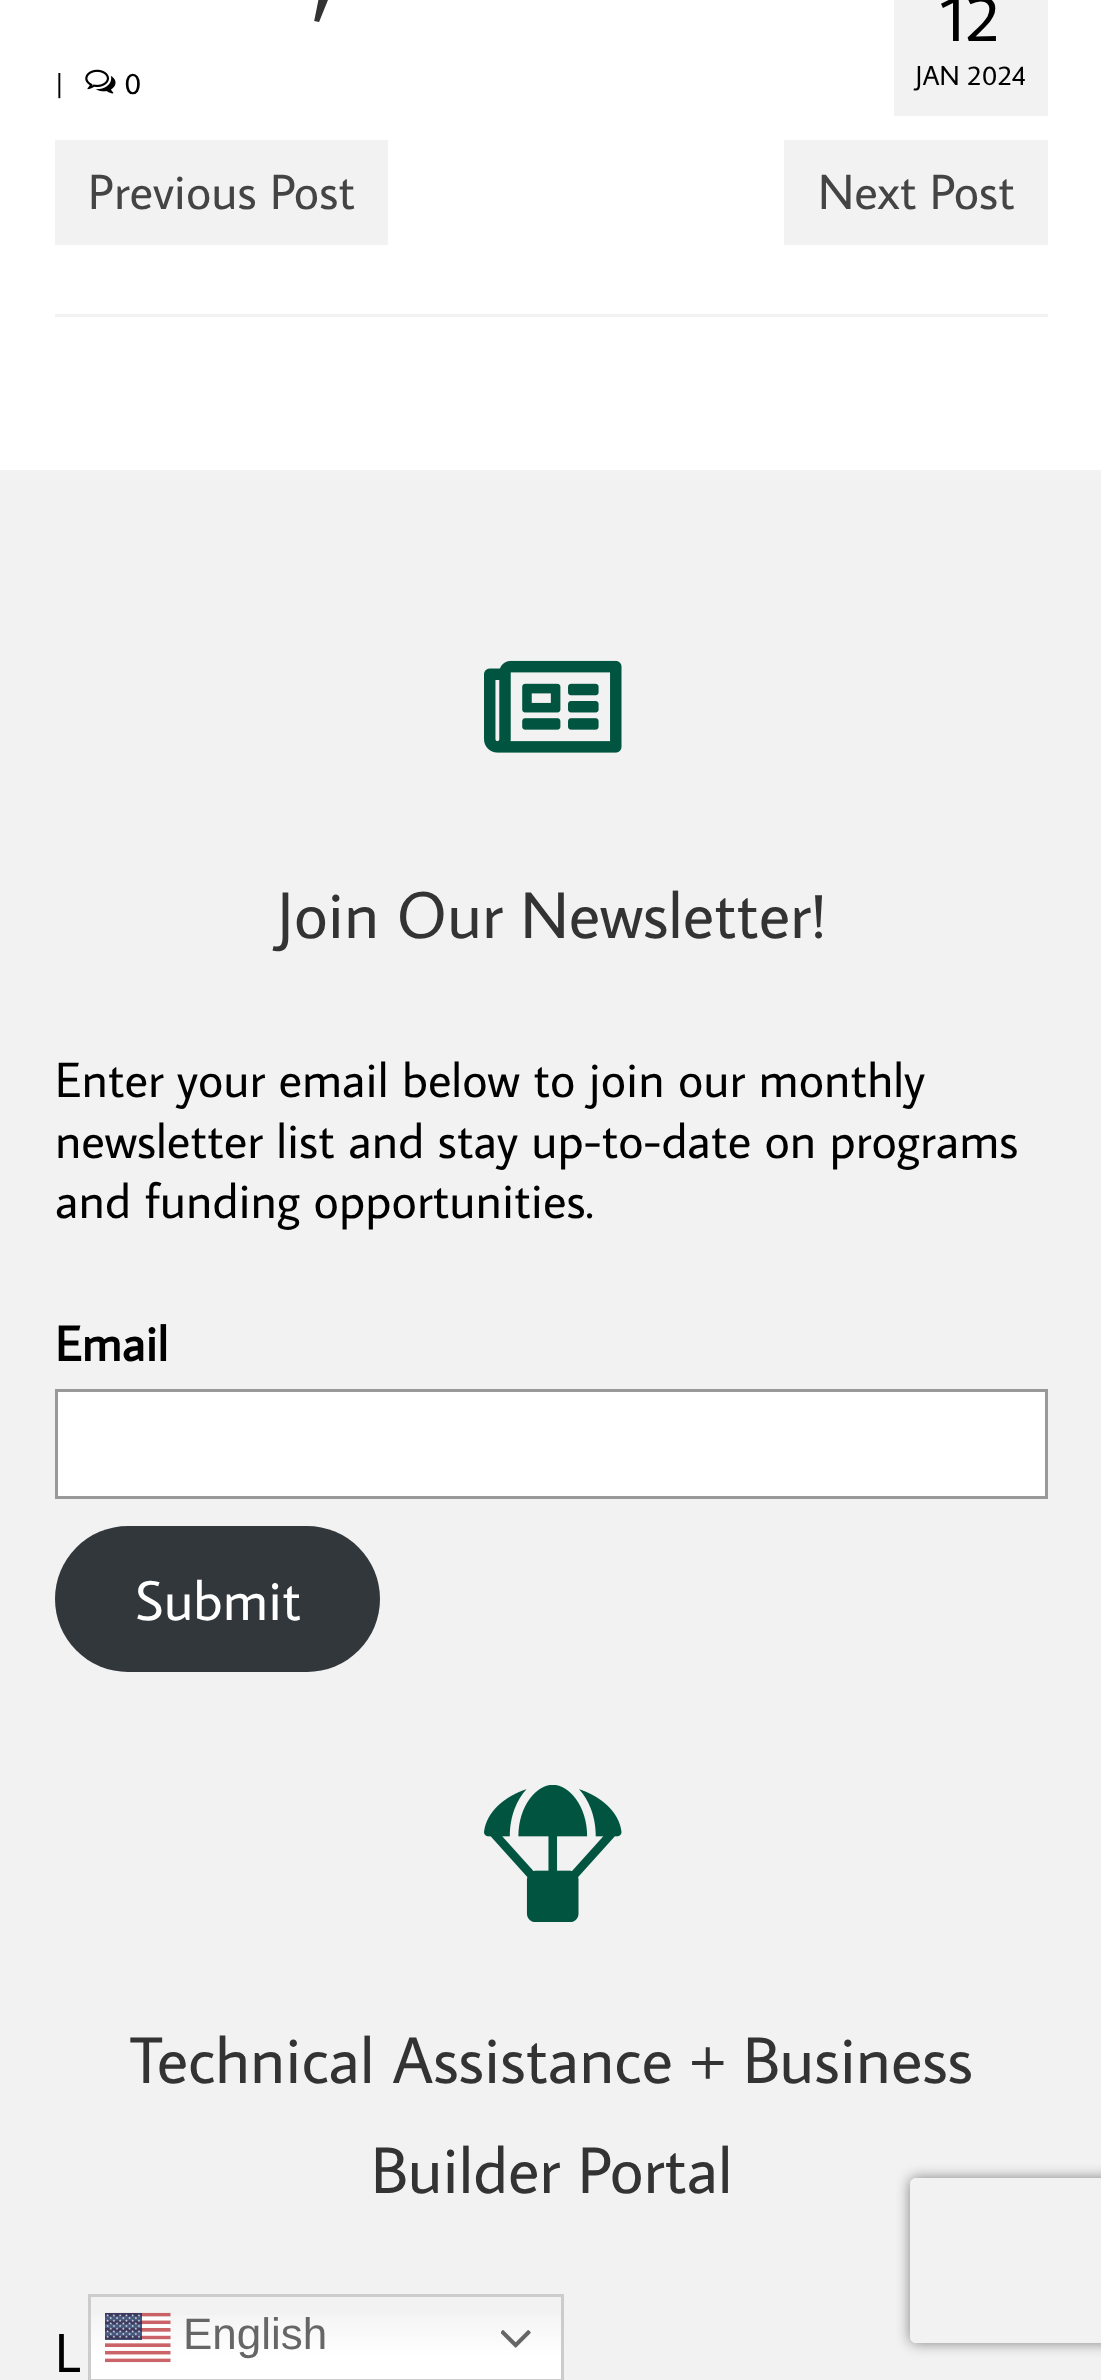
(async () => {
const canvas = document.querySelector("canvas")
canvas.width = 1101
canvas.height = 2380
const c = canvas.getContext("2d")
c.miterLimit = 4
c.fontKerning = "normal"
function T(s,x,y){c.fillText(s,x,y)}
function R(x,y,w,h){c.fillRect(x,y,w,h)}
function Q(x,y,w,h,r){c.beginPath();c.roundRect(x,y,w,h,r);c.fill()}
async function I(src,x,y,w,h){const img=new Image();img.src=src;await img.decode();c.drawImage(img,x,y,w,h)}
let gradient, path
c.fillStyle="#fff"
R(0,0,1101,2380)
c.font="104px Average Sans"
c.fillStyle="#333"
T(",",312,8)
c.font="30px Average Sans"
c.fillStyle="#000"
T("|",55,94)
await I("1.png",85,69,31,25)
T("0",124,94)
c.fillStyle="#f2f2f2"
R(894,0,154,116)
c.font="66px Average Sans"
c.fillStyle="#000"
T("12",941,41)
c.font="27.5px Average Sans"
T("JAN 2024",915,85)
c.fillStyle="#f2f2f2"
R(55,314,993,3)
R(55,140,333,105)
c.font="49.5px Average Sans"
c.fillStyle="#444"
T("Previous Post",88,209)
c.fillStyle="#f2f2f2"
R(784,140,264,105)
c.fillStyle="#444"
T("Next Post",818,209)
c.fillStyle="#f2f2f2"
R(0,470,1101,1910)
await I("2.png",484,660,138,93)
c.font="66px Average Sans"
c.fillStyle="#333"
T("Join Our Newsletter!",276,938)
c.font="49.5px Average Sans"
c.fillStyle="#000"
T("Enter your email below to join our monthly",55,1097)
T("newsletter list and stay up-to-date on programs",55,1158)
T("and funding opportunities.",55,1218)
c.font="bold 49.5px Average Sans"
T("Email",55,1361)
c.fillStyle="#fff"
c.beginPath()
c.rect(56.5,1390.5,990,107)
c.fill()
c.strokeStyle="#999"
c.lineWidth=3
c.stroke()
c.fillStyle="#32373c"
Q(55,1526,325,146,73)
c.font="56px Average Sans"
c.fillStyle="#fff"
T("Submit",135,1620)
await I("3.png",484,1785,138,137)
c.font="66px Average Sans"
c.fillStyle="#333"
T("Technical Assistance + Business",130,2083)
T("Builder Portal",371,2193)
c.font="55px Average Sans"
c.fillStyle="#000"
T("L",55,2372)
gradient = c.createLinearGradient(326,2294,326,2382)
gradient.addColorStop(0,"#efefef")
gradient.addColorStop(.7,"#fff")
c.fillStyle = gradient
R(91,2315,470,64)
c.strokeStyle="#ccc"
c.strokeRect(89.5,2295.5,473,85)
await I("4.png",105,2312,66,51)
c.font="44px Liberation Sans"
c.fillStyle="#666"
T("English",183,2349)
await I("5.png",501,2330,30,18)
c.save()
path = new Path2D("M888 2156h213v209h-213zm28 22h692c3.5 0 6 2.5 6 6v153c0 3.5-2.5 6-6 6h-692c-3.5 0-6-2.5-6-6v-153c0-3.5 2.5-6 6-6z")
c.clip(path,"evenodd")
c.fillStyle="#808080"
c.filter="blur(7px)"
c.beginPath()
c.roundRect(910,2178,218,165,6)
c.fill()
c.filter="none"
c.restore()
})()
